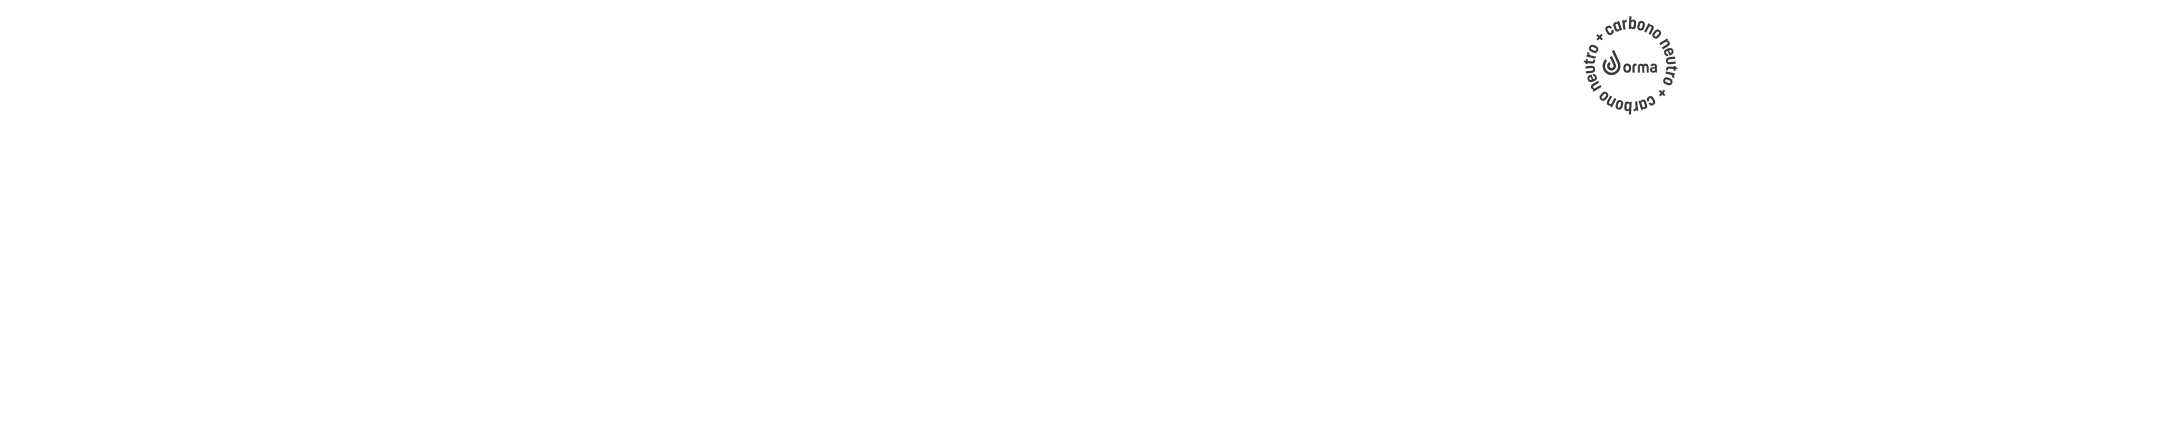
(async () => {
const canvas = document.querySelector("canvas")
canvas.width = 2173
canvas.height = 423
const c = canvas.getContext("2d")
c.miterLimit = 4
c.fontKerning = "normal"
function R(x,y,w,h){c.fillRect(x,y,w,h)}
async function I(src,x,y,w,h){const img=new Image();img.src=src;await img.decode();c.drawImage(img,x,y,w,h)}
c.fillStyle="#fff"
R(0,0,2173,423)
await I("1.png",1583,16,95,99)
})()
